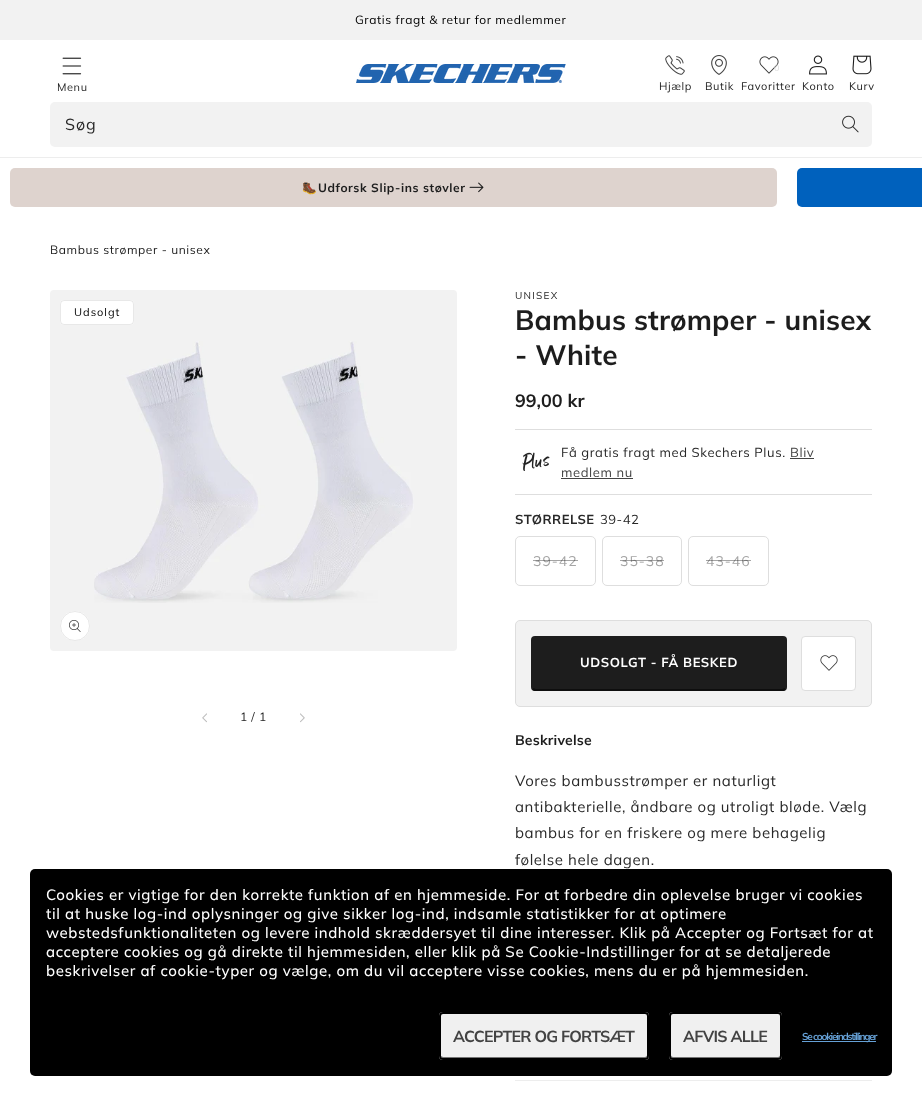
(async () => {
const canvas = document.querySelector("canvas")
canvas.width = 922
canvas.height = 1108
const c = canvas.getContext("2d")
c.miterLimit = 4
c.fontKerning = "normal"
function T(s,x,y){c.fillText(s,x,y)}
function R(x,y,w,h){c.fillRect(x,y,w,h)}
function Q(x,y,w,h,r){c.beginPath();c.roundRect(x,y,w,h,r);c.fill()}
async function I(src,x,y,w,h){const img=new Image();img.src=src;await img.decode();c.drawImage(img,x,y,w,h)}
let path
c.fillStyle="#fff"
R(0,0,922,1108)
c.fillStyle="#f2f2f2"
R(0,0,922,40)
c.letterSpacing="0.6px"
c.font="12px Muli"
c.fillStyle="#000"
T("Gratis fragt & retur for medlemmer",355,24)
c.fillStyle="#ededed"
R(0,157,922,1)
await I("1.png",62,57,20,18)
c.font="11px Muli"
c.fillStyle="#1d1d1d"
T("Menu",57,91)
await I("2.png",356,64,210,19)
await I("3.png",665,55,20,20)
T("Hjælp",659,90)
await I("4.png",711,55,16,20)
T("Butik",705,90)
await I("5.png",759,56,20,18)
c.font="9px Muli"
c.fillStyle="#dcdcdc"
T("0",774,71)
c.font="11px Muli"
c.fillStyle="#1d1d1d"
T("Favoritter",741,90)
await I("6.png",809,55,18,20)
T("Konto",802,90)
await I("7.png",852,55,20,20)
T("Kurv",849,90)
c.fillStyle="#f2f2f2"
Q(50,102,822,45,5)
c.letterSpacing="1px"
c.font="16px Muli"
c.fillStyle="#282828"
T("Søg",65,130)
await I("8.png",842,115,17,18)
c.fillStyle="#ded3ce"
Q(10,168,767,39,5)
c.letterSpacing="0.6px"
c.font="bold 12px Noto Color Emoji"
c.fillStyle="#1d1d1d"
T("🥾",302,192)
c.font="bold 12px Muli"
T("Udforsk Slip-ins støvler",318,192)
await I("9.png",469,182,15,11)
c.fillStyle="#0061bd"
c.beginPath()
c.roundRect(797,168,125,39,[5,0,0,5])
c.fill()
c.font="12px Muli"
c.fillStyle="#1d1d1d"
T("Bambus strømper - unisex",50,254)
c.fillStyle="#f2f2f2"
Q(50,290,407,361,4)
await I("10.png",94,341,320,262)
c.fillStyle="#fff"
c.beginPath()
c.arc(75,626,15,0,7)
c.fill()
c.beginPath()
c.arc(75,626,14.5,0,7)
c.strokeStyle="#1d1d1d1a"
c.stroke()
await I("11.png",69,620,12,12)
Q(60,300,74,25,4)
c.beginPath()
c.roundRect(60.5,300.5,73,24,3.5)
c.stroke()
c.letterSpacing="1px"
c.font="11px Muli"
c.fillStyle="#000"
T("Udsolgt",74,316)
await I("12.png",202,713,5,10)
c.letterSpacing="0.5px"
c.font="12px Muli"
c.fillStyle="#282828"
T("1 / 1",240,721)
await I("13.png",300,713,5,10)
c.letterSpacing="1.25px"
c.font="10px Muli"
T("UNISEX",515,299)
c.letterSpacing="0.2px"
c.font="bold 28px Muli"
c.fillStyle="#1d1d1d"
T("Bambus strømper - unisex",515,330)
T("- White",515,365)
c.letterSpacing="0px"
c.font="bold 18px Muli"
T("99,00 kr",515,407)
c.fillStyle="#dedede"
R(515,429,357,1)
R(515,494,357,1)
await I("14.png",522,452,28,19)
c.letterSpacing="0.6px"
c.font="13px Muli"
c.fillStyle="#282828"
T("Få gratis fragt med Skechers Plus.",561,457)
c.fillStyle="#434343"
T("Bliv",790,457)
R(790,458,24,1)
T("medlem nu",561,477)
R(561,478,72,1)
c.letterSpacing="0.5px"
c.font="bold 13px Muli"
c.fillStyle="#282828"
T("STØRRELSE",515,524)
c.font="13px Muli"
T("39-42",600,524)
c.beginPath()
c.roundRect(515.5,536.5,80,49,4.5)
c.strokeStyle="#dedede"
c.stroke()
c.letterSpacing="1px"
c.font="14px Muli"
c.fillStyle="#a5a5a5"
T("39-42",533,566)
c.fillStyle="#1d1d1d66"
R(533,560,45,1)
c.beginPath()
c.roundRect(602.5,536.5,79,49,4.5)
c.stroke()
c.fillStyle="#a5a5a5"
T("35-38",620,566)
c.fillStyle="#1d1d1d66"
R(620,560,44,1)
c.beginPath()
c.roundRect(688.5,536.5,80,49,4.5)
c.stroke()
c.fillStyle="#a5a5a5"
T("43-46",706,566)
c.fillStyle="#1d1d1d66"
R(706,560,45,1)
c.fillStyle="#f2f2f2"
c.beginPath()
c.roundRect(515.5,620.5,356,86,4.5)
c.fill()
c.stroke()
c.fillStyle="#1d1d1d"
Q(531,636,256,55,4)
path = new Path2D("M785 689l-2 1h-248l-2-1")
c.strokeStyle="#0e0e0e"
c.lineWidth=2
c.stroke(path)
c.letterSpacing="0.6px"
c.font="bold 13px Muli"
c.fillStyle="#fff"
T("UDSOLGT - FÅ BESKED",580,667)
c.beginPath()
c.roundRect(801.5,636.5,54,54,3.5)
c.fill()
c.strokeStyle="#dedede"
c.lineWidth=1
c.stroke()
await I("15.png",820,655,18,16)
c.letterSpacing="0.2px"
c.font="bold 14px Muli"
c.fillStyle="#1d1d1d"
T("Beskrivelse",515,745)
c.letterSpacing="0.6px"
c.font="15px Muli"
c.fillStyle="#282828"
T("Vores bambusstrømper er naturligt",515,786)
T("antibakterielle, åndbare og utroligt bløde. Vælg",515,812)
T("bambus for en friskere og mere behagelig",515,838)
T("følelse hele dagen.",515,865)
c.fillStyle="#ededed"
R(515,1080,357,1)
c.fillStyle="#000"
Q(30,869,862,207,5)
c.font="500 15px Mulish"
c.fillStyle="#fff"
T("Cookies er vigtige for den korrekte funktion af en hjemmeside. For at forbedre din oplevelse bruger vi cookies",46,900)
T("til at huske log-ind oplysninger og give sikker log-ind, indsamle statistikker for at optimere",46,919)
T("webstedsfunktionaliteten og levere indhold skræddersyet til dine interesser. Klik på Accepter og Fortsæt for at",46,938)
T("acceptere cookies og gå direkte til hjemmesiden, eller klik på Se Cookie-Indstillinger for at se detaljerede",46,957)
T("beskrivelser af cookie-typer og vælge, om du vil acceptere visse cookies, mens du er på hjemmesiden.",46,976)
c.fillStyle="#f0f0f0"
Q(439,1012,210,48,4)
c.fillStyle="#757575"
path = new Path2D("M441 1055c0 1 0 3 2 3h202c2 0 2-2 2-3c0 1-1 2-2 2h-202l-2-1z")
c.fill(path)
c.beginPath()
c.roundRect(440,1013,208,46,3)
c.strokeStyle="#000"
c.lineWidth=2
c.stroke()
c.letterSpacing="-0.75px"
c.font="bold 16px Mulish"
c.fillStyle="#434343"
T("ACCEPTER OG FORTSÆT",453,1042)
c.fillStyle="#f0f0f0"
Q(669,1012,113,48,4)
c.fillStyle="#757575"
path = new Path2D("M671 1055c0 1 0 3 2 3h105c2 0 2-2 2-3c0 1-1 2-2 2h-105c-1 0-2-1-2-2z")
c.fill(path)
c.beginPath()
c.roundRect(670,1013,111,46,3)
c.stroke()
c.fillStyle="#434343"
T("AFVIS ALLE",683,1042)
c.fillStyle="#66a1d6"
R(802,1041,74,1)
c.letterSpacing="-1.2px"
c.font="bold 10px Mulish"
T("Se cookieindstillinger",802,1040)
})()
